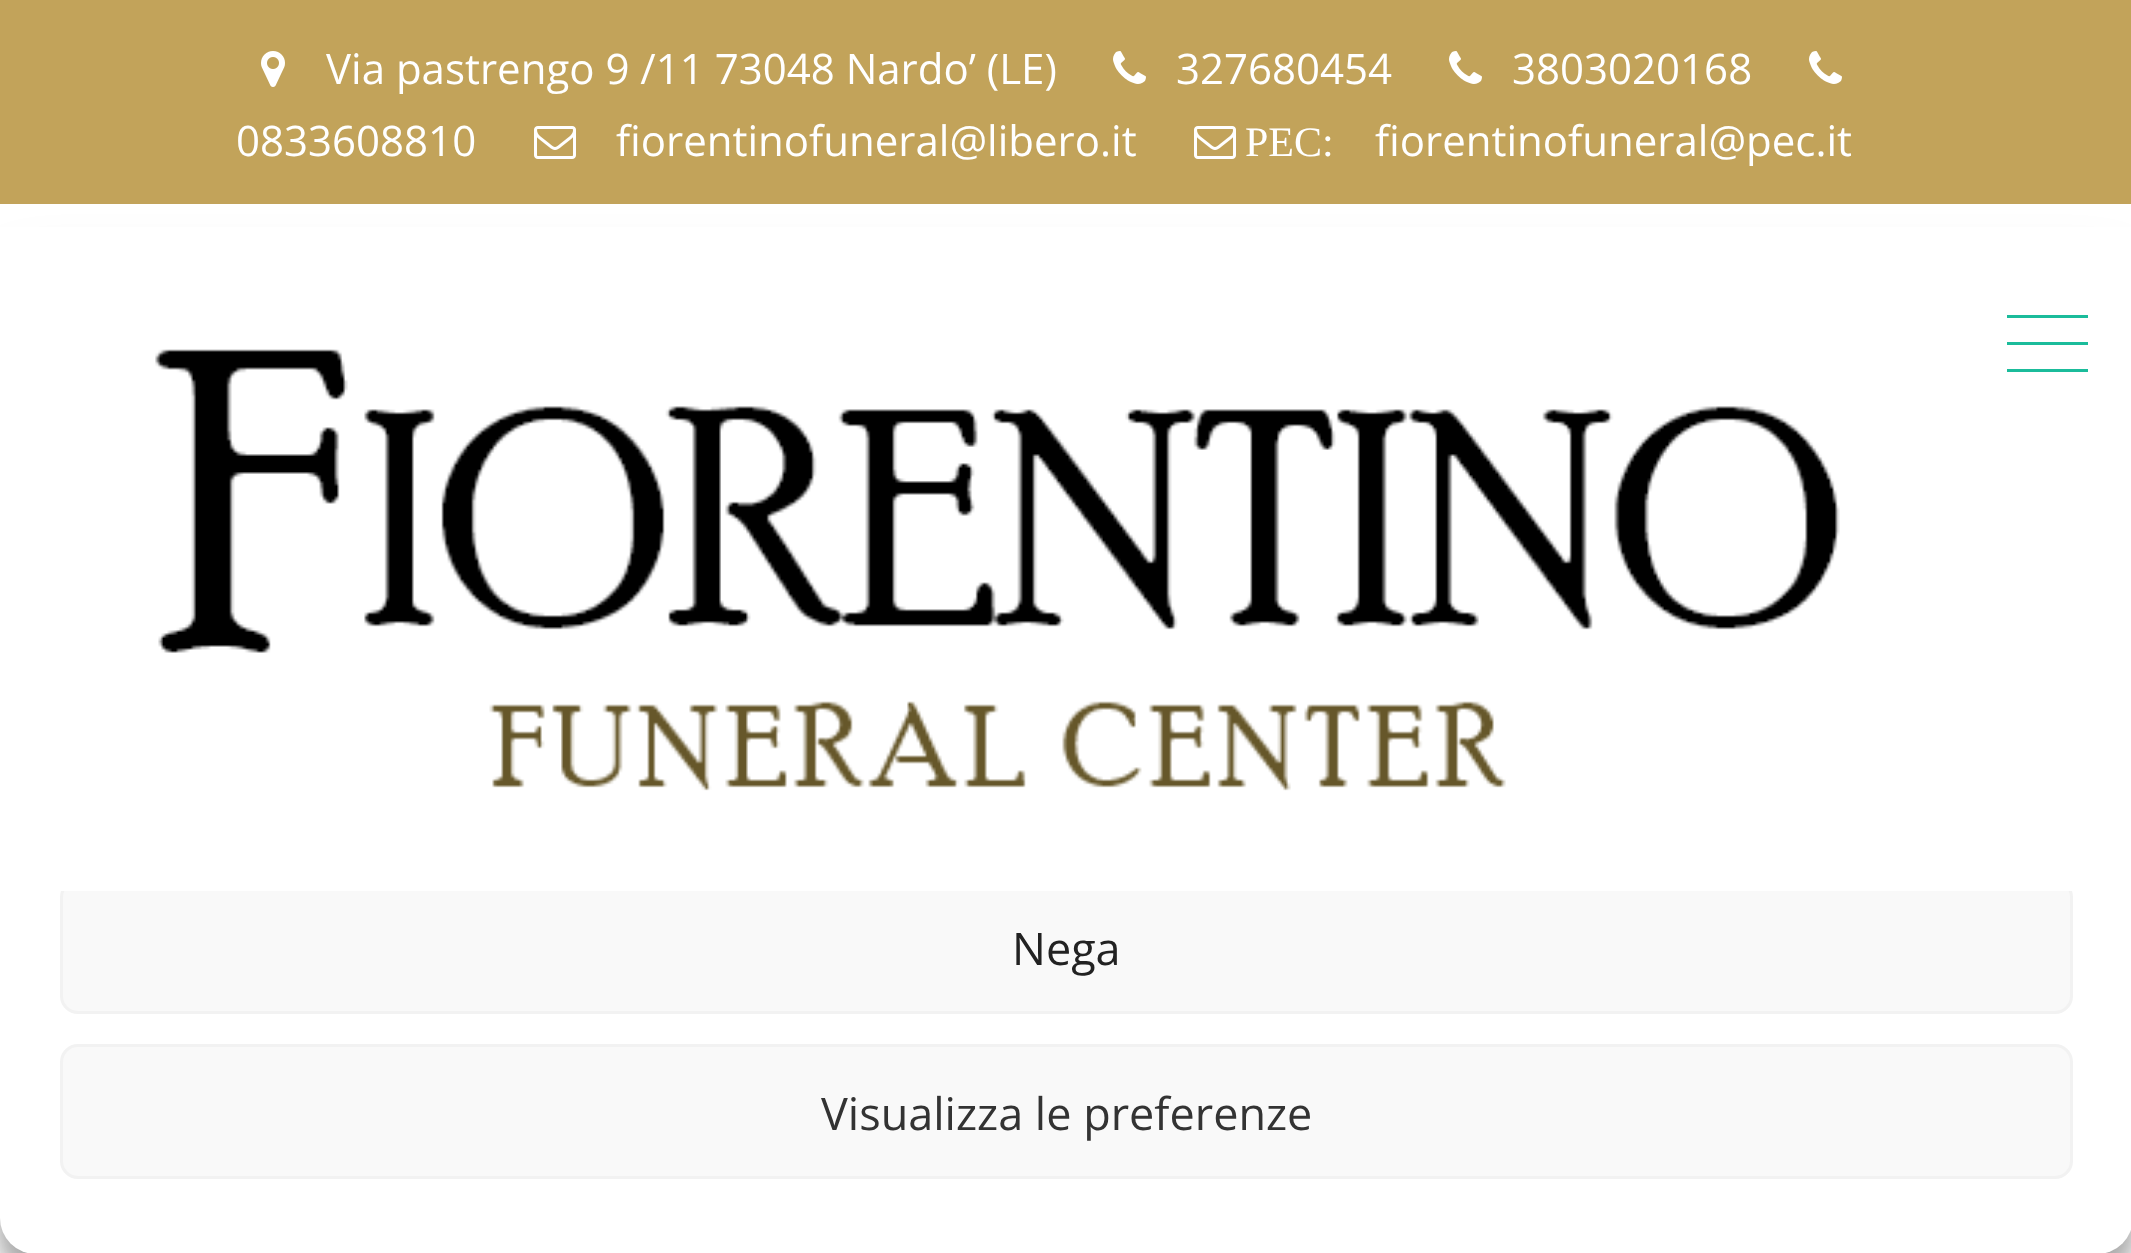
(async () => {
const canvas = document.querySelector("canvas")
canvas.width = 2131
canvas.height = 1253
const c = canvas.getContext("2d")
c.miterLimit = 4
c.fontKerning = "normal"
function T(s,x,y){c.fillText(s,x,y)}
function R(x,y,w,h){c.fillRect(x,y,w,h)}
function Q(x,y,w,h,r){c.beginPath();c.roundRect(x,y,w,h,r);c.fill()}
async function I(src,x,y,w,h){const img=new Image();img.src=src;await img.decode();c.drawImage(img,x,y,w,h)}
c.fillStyle="#fff"
R(0,0,2131,1253)
c.fillStyle="#c2a35a"
R(0,0,2131,204)
await I("1.png",261,51,24,36)
c.font="42px Open Sans"
c.fillStyle="#fff"
T("Via pastrengo 9 /11 73048 Nardo’ (LE)",326,84)
await I("2.png",1113,51,33,33)
T("327680454",1176,84)
await I("2.png",1449,51,33,33)
T("3803020168",1512,84)
await I("2.png",1809,51,33,33)
T("0833608810",236,156)
await I("3.png",534,126,42,33)
T("fiorentinofuneral@libero.it",616,156)
await I("3.png",1194,126,42,33)
c.font="42px Liberation Serif"
T("PEC:",1245,156)
c.font="42px Open Sans"
T("fiorentinofuneral@pec.it",1375,156)
c.fillStyle="#0000003b"
c.filter="blur(9px)"
c.beginPath()
c.roundRect(0,264,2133,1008,36)
c.fill()
c.filter="none"
c.fillStyle="#00000030"
c.filter="blur(30px)"
c.beginPath()
c.roundRect(0,276,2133,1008,36)
c.fill()
c.filter="none"
c.fillStyle="#fff"
Q(0,246,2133,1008,36)
c.fillStyle="#f9f9f9"
c.beginPath()
c.roundRect(61.5,880.5,2010,132,16.5)
c.fill()
c.strokeStyle="#f2f2f2"
c.lineWidth=3
c.stroke()
c.fillStyle="#fff"
R(0,227,2131,664)
await I("4.png",155,349,1685,442)
c.fillStyle="#1bbc9b"
R(2007,315,81,3)
R(2007,342,81,3)
R(2007,369,81,3)
c.font="45px Open Sans"
c.fillStyle="#222"
T("Nega",1012,965)
c.fillStyle="#f9f9f9"
c.beginPath()
c.roundRect(61.5,1045.5,2010,132,16.5)
c.fill()
c.stroke()
c.fillStyle="#333"
T("Visualizza le preferenze",821,1130)
})()
